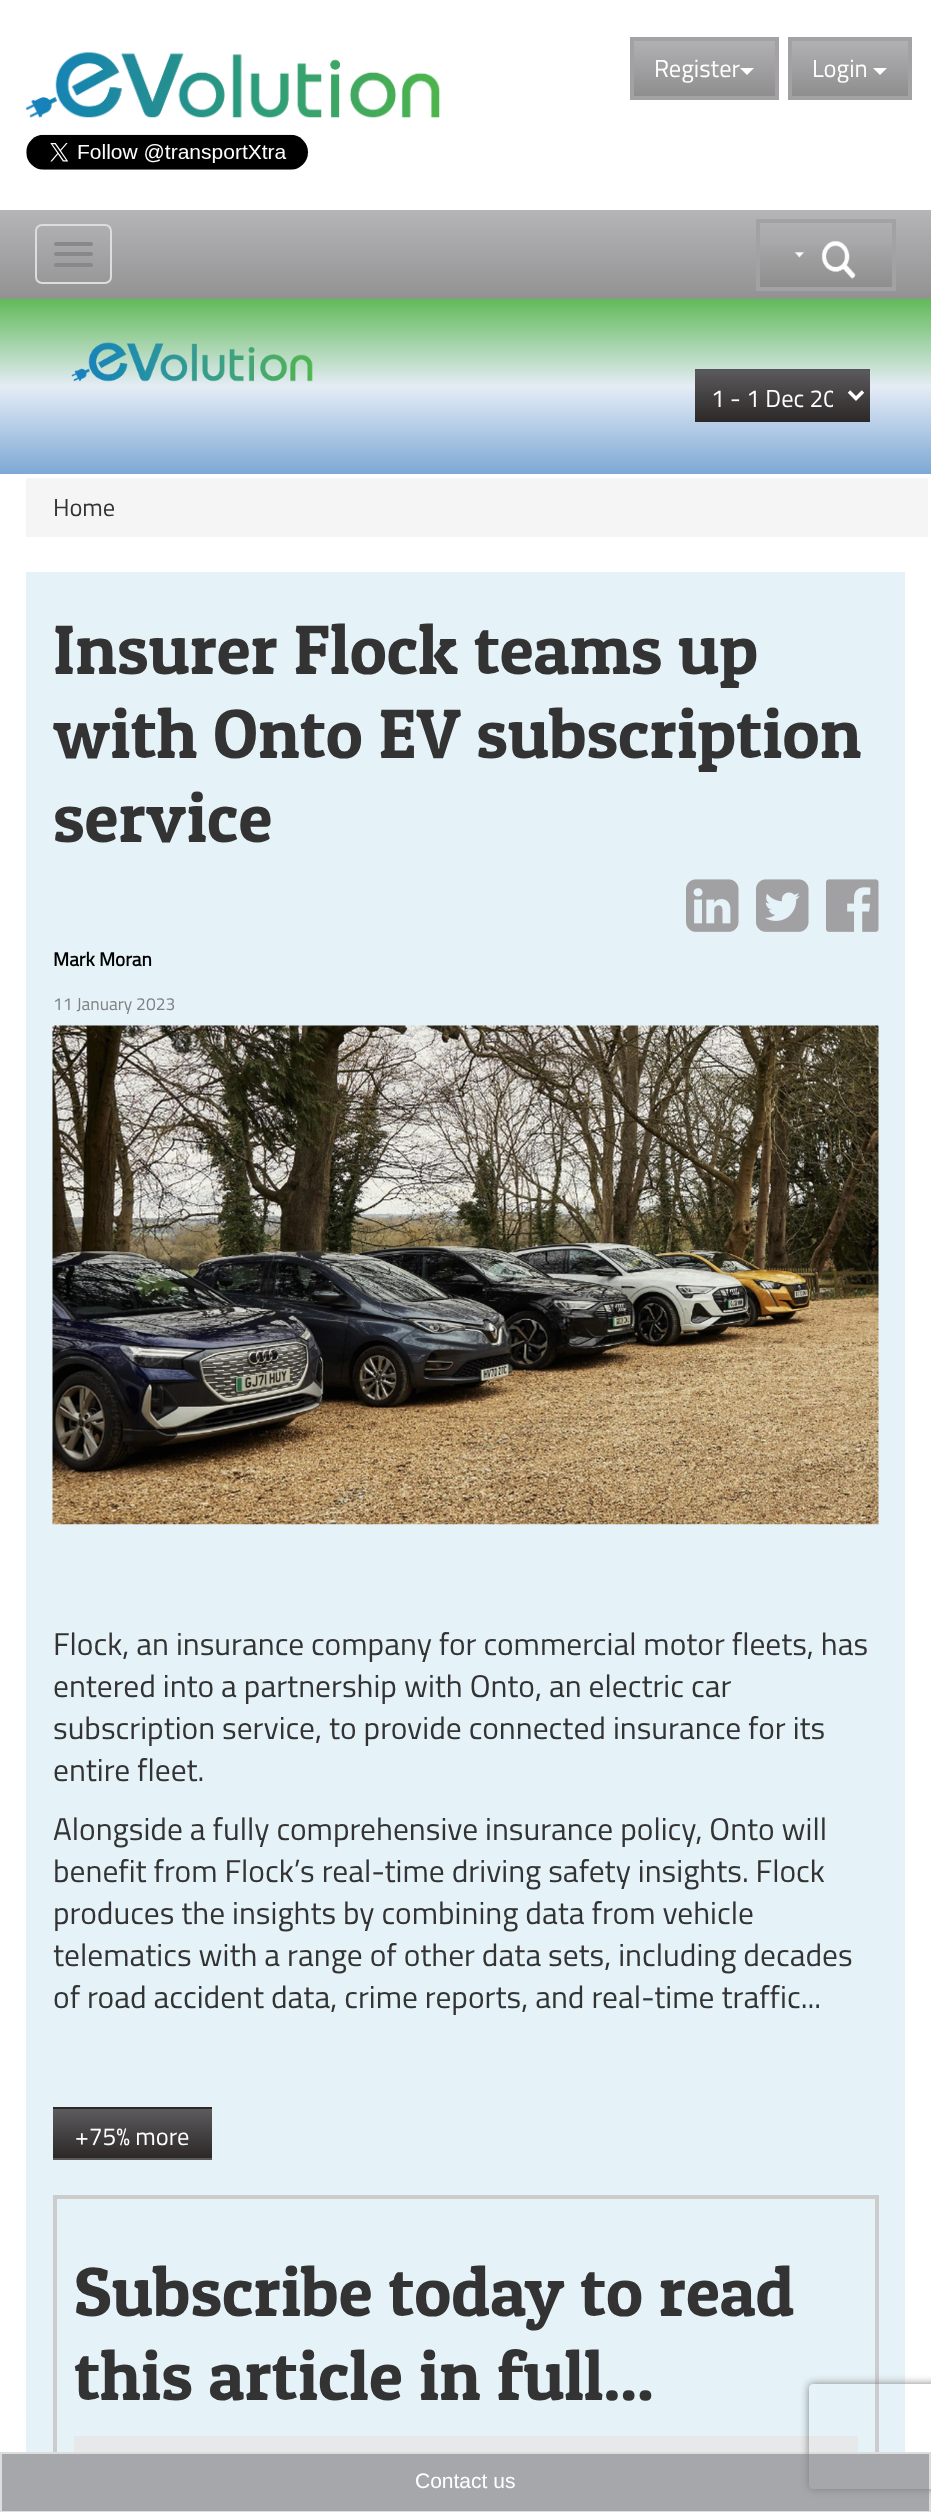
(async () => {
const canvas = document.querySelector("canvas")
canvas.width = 931
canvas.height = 2512
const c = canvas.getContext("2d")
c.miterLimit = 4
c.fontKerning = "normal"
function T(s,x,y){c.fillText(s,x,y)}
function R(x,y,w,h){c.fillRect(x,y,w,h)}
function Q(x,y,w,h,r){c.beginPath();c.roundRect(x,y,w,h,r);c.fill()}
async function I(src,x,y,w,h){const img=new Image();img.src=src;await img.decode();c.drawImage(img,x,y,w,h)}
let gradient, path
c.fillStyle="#fff"
R(0,0,931,2512)
await I("1.png",26,52,414,66)
await I("2.png",26,134,283,36)
gradient = c.createLinearGradient(704,40,704,96)
gradient.addColorStop(0,"#b1b1b3")
gradient.addColorStop(1,"#8f8e8f")
c.fillStyle = gradient
R(634,41,141,55)
c.strokeStyle="#a3a1a3"
c.lineWidth=4
c.strokeRect(632,39,145,59)
c.font="24.5px Titillium Web"
c.fillStyle="#fff"
T("Register",654,77)
path = new Path2D("M740 68h14l-7 7z")
c.fill(path)
gradient = c.createLinearGradient(850,40,850,96)
gradient.addColorStop(0,"#b1b1b3")
gradient.addColorStop(1,"#8f8e8f")
c.fillStyle = gradient
R(792,41,116,55)
c.strokeRect(790,39,120,59)
c.fillStyle="#fff"
T("Login",812,77)
path = new Path2D("M873 68h14l-7 7z")
c.fill(path)
gradient = c.createLinearGradient(466,210,466,299)
gradient.addColorStop(0,"#b5b4b7")
gradient.addColorStop(1,"#929293")
c.fillStyle = gradient
R(0,210,931,89)
c.beginPath()
c.roundRect(36,225,75,58,6)
c.strokeStyle="#ddd"
c.lineWidth=2
c.stroke()
c.fillStyle="#888"
Q(54,242,39,4,2)
Q(54,252,39,4,2)
Q(54,263,39,4,2)
gradient = c.createLinearGradient(826,222,826,287)
gradient.addColorStop(0,"#b1b1b3")
gradient.addColorStop(1,"#8f8e8f")
c.fillStyle = gradient
R(760,245,132,42)
c.strokeStyle="#a3a1a3"
c.lineWidth=4
c.strokeRect(758,221,136,68)
await I("3.png",794,240,62,39)
gradient = c.createLinearGradient(466,299,466,474)
gradient.addColorStop(0,"#61ba59")
gradient.addColorStop(.5,"#e5ecf6")
gradient.addColorStop(1,"#7da8d5")
c.fillStyle = gradient
R(0,299,931,175)
await I("4.png",71,342,242,40)
gradient = c.createLinearGradient(782,369,782,422)
gradient.addColorStop(0,"#5c5b5d")
gradient.addColorStop(1,"#2c2828")
c.fillStyle = gradient
R(695,371,175,51)
c.fillStyle="#555456"
R(695,369,175,2)
path = new Path2D("M849 391.5l7 7l7-7")
c.strokeStyle="#fff"
c.lineWidth=3.5
c.stroke(path)
c.save()
c.beginPath()
c.rect(711,378,122,40)
c.clip()
c.fillStyle="#fff"
T("1 - 1 Dec 20",711,407)
c.restore()
c.fillStyle="#f5f5f5"
R(26,478,902,59)
c.fillStyle="#333"
T("Home",53,516)
c.fillStyle="#e5f2f8"
R(26,572,879,1880)
c.font="70px Patua One"
c.fillStyle="#333"
T("Insurer Flock teams up",53,674)
T("with Onto EV subscription",53,758)
T("service",53,842)
await I("5.png",686,879,53,53)
await I("6.png",756,879,53,53)
await I("7.png",826,879,53,53)
c.font="bold 19.25px Titillium Web"
c.fillStyle="#000"
T("Mark Moran",53,966)
c.font="17.5px Titillium Web"
c.fillStyle="#808080"
T("11 January 2023",53,1010)
await I("8.png",52,1025,827,500)
c.font="31.5px Titillium Web"
c.fillStyle="#333"
T("Flock, an insurance company for commercial motor fleets, has",53,1655)
T("entered into a partnership with Onto, an electric car",53,1697)
T("subscription service, to provide connected insurance for its",53,1739)
T("entire fleet.",53,1781)
T("Alongside a fully comprehensive insurance policy, Onto will",53,1840)
T("benefit from Flock’s real-time driving safety insights. Flock",53,1882)
T("produces the insights by combining data from vehicle",53,1924)
T("telematics with a range of other data sets, including decades",53,1966)
T("of road accident data, crime reports, and real-time traffic...",53,2008)
gradient = c.createLinearGradient(132,2060,132,2109)
gradient.addColorStop(0,"#5c5b5d")
gradient.addColorStop(1,"#2c2828")
c.fillStyle = gradient
R(53,2107,159,2)
gradient = c.createLinearGradient(132,2109,132,2158)
gradient.addColorStop(0,"#5c5b5d")
gradient.addColorStop(1,"#2c2828")
c.fillStyle = gradient
R(53,2109,159,49)
gradient = c.createLinearGradient(132,2158,132,2207)
gradient.addColorStop(0,"#5c5b5d")
gradient.addColorStop(1,"#2c2828")
c.fillStyle = gradient
R(53,2158,159,2)
c.font="24.5px Titillium Web"
c.fillStyle="#fff"
T("+75% more",75,2145)
c.strokeStyle="#ccc"
c.lineWidth=4
c.strokeRect(55,2197,822,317)
c.font="70px Patua One"
c.fillStyle="#333"
T("Subscribe today to read",74,2316)
T("this article in full...",74,2400)
c.fillStyle="#e7e8e9"
R(74,2436,784,16)
c.strokeStyle="#ddd"
c.lineWidth=2
c.strokeRect(1,2453,929,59)
c.fillStyle="#a5a7aa"
R(2,2454,927,57)
c.font="21px Liberation Sans"
c.fillStyle="#fff"
T("Contact us",415,2488)
c.save()
path = new Path2D("M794 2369h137v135h-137zm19 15h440c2 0 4 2 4 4v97c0 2-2 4-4 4h-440c-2 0-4-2-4-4v-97c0-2 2-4 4-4z")
c.clip(path,"evenodd")
c.fillStyle="#808080"
c.filter="blur(4.5px)"
c.beginPath()
c.roundRect(809,2384,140,105,4)
c.fill()
c.filter="none"
c.restore()
})()
